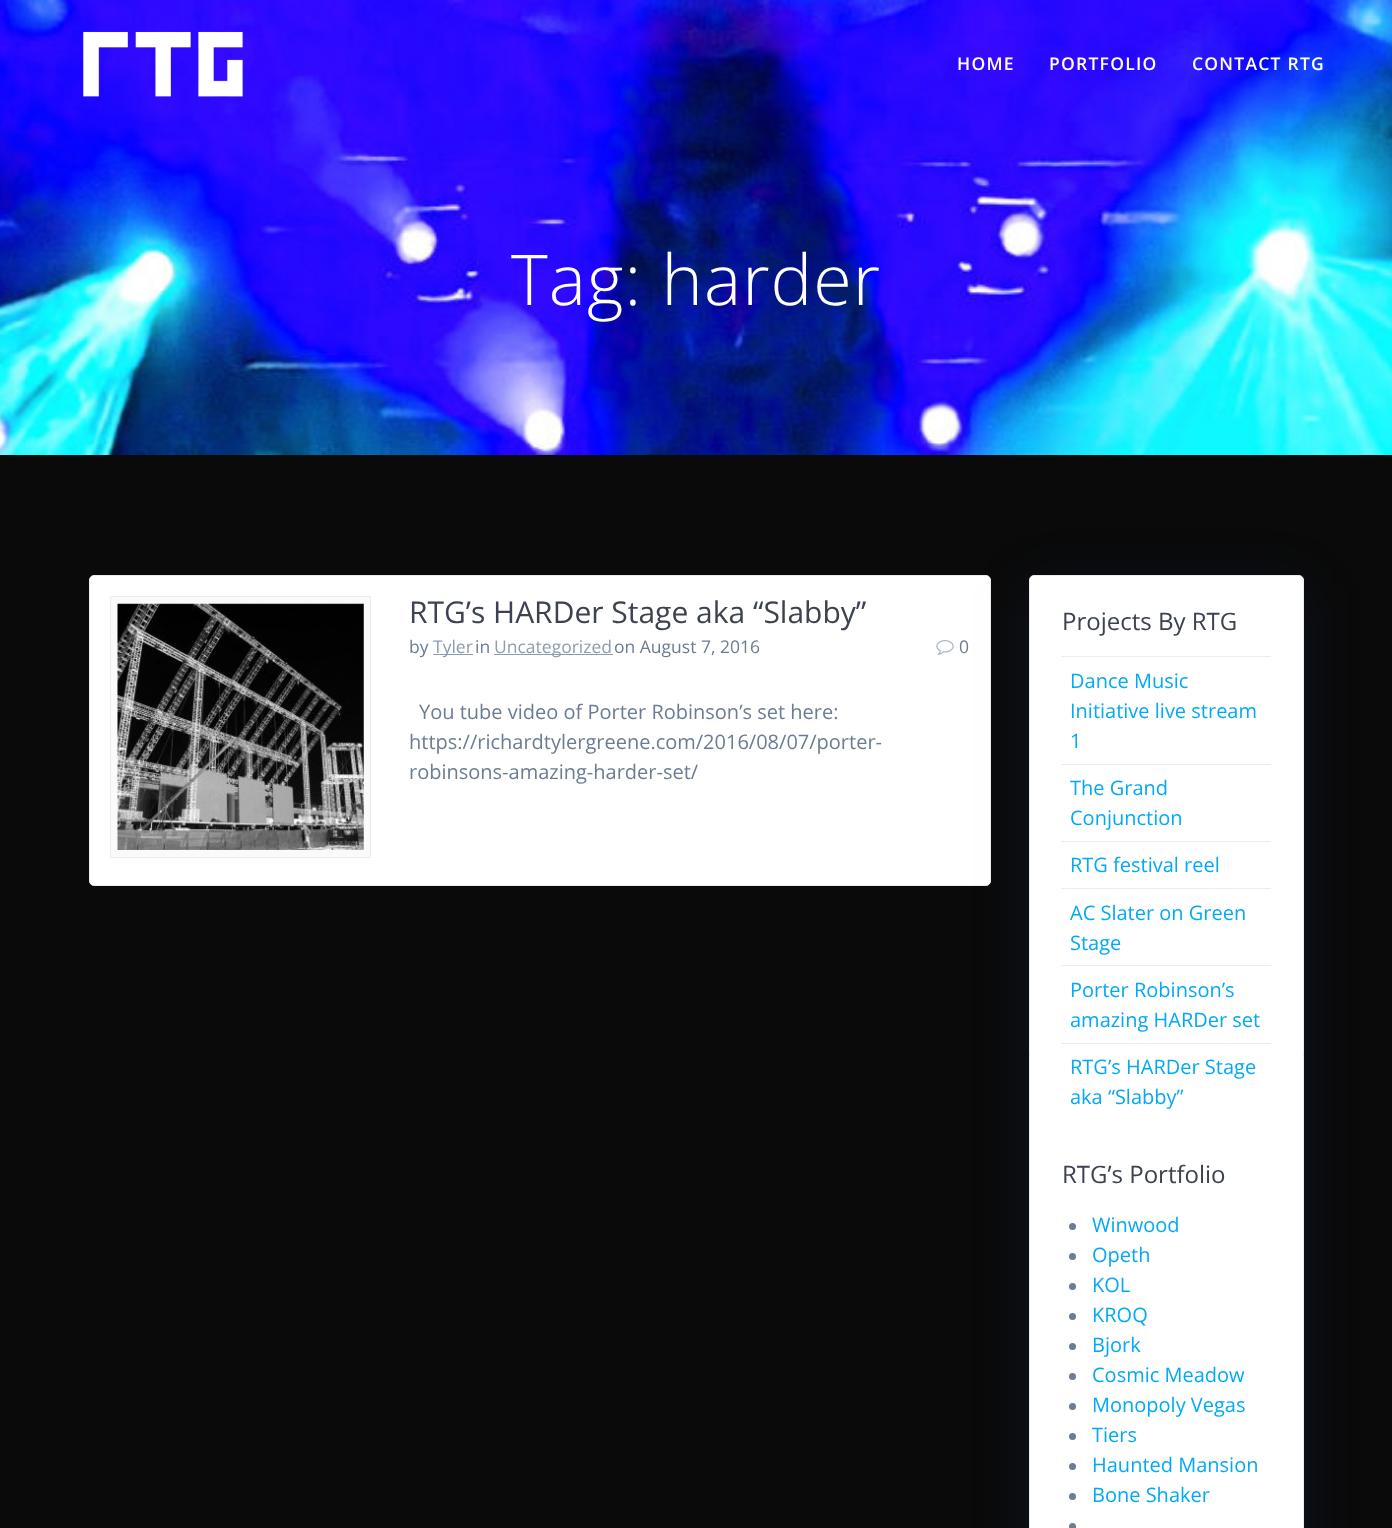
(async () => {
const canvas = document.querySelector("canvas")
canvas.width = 1392
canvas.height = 1528
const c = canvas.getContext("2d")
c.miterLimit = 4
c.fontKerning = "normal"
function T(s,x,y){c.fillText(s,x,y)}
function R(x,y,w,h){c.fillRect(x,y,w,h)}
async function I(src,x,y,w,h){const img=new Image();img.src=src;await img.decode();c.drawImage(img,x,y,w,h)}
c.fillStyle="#0a0a0a"
R(0,0,1392,1528)
await I("2.png",0,0,1392,455)
await I("1.png",83,31,160,66)
c.letterSpacing="1.25px"
c.font="600 17.5px Open Sans"
c.fillStyle="#fff"
T("HOME",957,70)
T("PORTFOLIO",1049,70)
T("CONTACT RTG",1192,70)
c.letterSpacing="1.1px"
c.font="300 70px Open Sans"
T("Tag: harder",511,305)
c.beginPath()
c.roundRect(89.5,575.5,901,310,4.5)
c.fill()
c.strokeStyle="#ececec"
c.stroke()
c.fillStyle="#fafafa"
c.beginPath()
c.rect(110.5,596.5,260,261)
c.fill()
c.stroke()
await I("3.png",117,603,247,247)
c.letterSpacing="0px"
c.font="30px Open Sans"
c.fillStyle="#3c424f"
T("RTG’s HARDer Stage aka “Slabby”",409,623)
c.font="17.5px Open Sans"
c.fillStyle="#6b7c93"
T("by",409,653)
c.fillStyle="#8e9dae"
R(433,654,40,1)
T("Tyler",433,653)
c.fillStyle="#6b7c93"
T("in",475,653)
c.fillStyle="#8e9dae"
R(494,654,119,1)
T("Uncategorized",494,653)
c.fillStyle="#6b7c93"
T("on August 7, 2016",614,653)
await I("4.png",936,640,18,15)
T("0",959,653)
c.font="20px Open Sans"
T("You tube video of Porter Robinson’s set here:",419,719)
T("https://richardtylergreene.com/2016/08/07/porter-",409,749)
T("robinsons-amazing-harder-set/",409,779)
c.fillStyle="#23459826"
c.filter="blur(28px)"
c.beginPath()
c.roundRect(1029,586,275,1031,5)
c.fill()
c.filter="none"
c.fillStyle="#fff"
c.beginPath()
c.roundRect(1029.5,575.5,274,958,4.5)
c.fill()
c.stroke()
c.font="24px Open Sans"
c.fillStyle="#3c424f"
T("Projects By RTG",1062,630)
c.fillStyle="#ececec"
R(1061,656,210,1)
c.font="20px Open Sans"
c.fillStyle="#03a9f4"
T("Dance Music",1070,688)
T("Initiative live stream",1070,718)
T("1",1070,748)
c.fillStyle="#ececec"
R(1061,764,210,1)
c.fillStyle="#03a9f4"
T("The Grand",1070,795)
T("Conjunction",1070,825)
c.fillStyle="#ececec"
R(1061,841,210,1)
c.fillStyle="#03a9f4"
T("RTG festival reel",1070,872)
c.fillStyle="#ececec"
R(1061,888,210,1)
c.fillStyle="#03a9f4"
T("AC Slater on Green",1070,920)
T("Stage",1070,950)
c.fillStyle="#ececec"
R(1061,965,210,1)
c.fillStyle="#03a9f4"
T("Porter Robinson’s",1070,997)
T("amazing HARDer set",1070,1027)
c.fillStyle="#ececec"
R(1061,1043,210,1)
c.fillStyle="#03a9f4"
T("RTG’s HARDer Stage",1070,1074)
T("aka “Slabby”",1070,1104)
c.font="24px Open Sans"
c.fillStyle="#3c424f"
T("RTG’s Portfolio",1062,1183)
c.fillStyle="#6b7c93"
c.beginPath()
c.arc(1072.5,1226.5,3.5,0,7)
c.fill()
c.font="20px Open Sans"
c.fillStyle="#03a9f4"
T("Winwood",1092,1232)
c.fillStyle="#6b7c93"
c.beginPath()
c.arc(1072.5,1256.5,3.5,0,7)
c.fill()
c.fillStyle="#03a9f4"
T("Opeth",1092,1262)
c.fillStyle="#6b7c93"
c.beginPath()
c.arc(1072.5,1286.5,3.5,0,7)
c.fill()
c.fillStyle="#03a9f4"
T("KOL",1092,1292)
c.fillStyle="#6b7c93"
c.beginPath()
c.arc(1072.5,1316.5,3.5,0,7)
c.fill()
c.fillStyle="#03a9f4"
T("KROQ",1092,1322)
c.fillStyle="#6b7c93"
c.beginPath()
c.arc(1072.5,1346.5,3.5,0,7)
c.fill()
c.fillStyle="#03a9f4"
T("Bjork",1092,1352)
c.fillStyle="#6b7c93"
c.beginPath()
c.arc(1072.5,1376.5,3.5,0,7)
c.fill()
c.fillStyle="#03a9f4"
T("Cosmic Meadow",1092,1382)
c.fillStyle="#6b7c93"
c.beginPath()
c.arc(1072.5,1406.5,3.5,0,7)
c.fill()
c.fillStyle="#03a9f4"
T("Monopoly Vegas",1092,1412)
c.fillStyle="#6b7c93"
c.beginPath()
c.arc(1072.5,1436.5,3.5,0,7)
c.fill()
c.fillStyle="#03a9f4"
T("Tiers",1092,1442)
c.fillStyle="#6b7c93"
c.beginPath()
c.arc(1072.5,1466.5,3.5,0,7)
c.fill()
c.fillStyle="#03a9f4"
T("Haunted Mansion",1092,1472)
c.fillStyle="#6b7c93"
c.beginPath()
c.arc(1072.5,1496.5,3.5,0,7)
c.fill()
c.fillStyle="#03a9f4"
T("Bone Shaker",1092,1502)
c.fillStyle="#6b7c93"
c.beginPath()
c.arc(1072.5,1526.5,3.5,0,7)
c.fill()
})()
